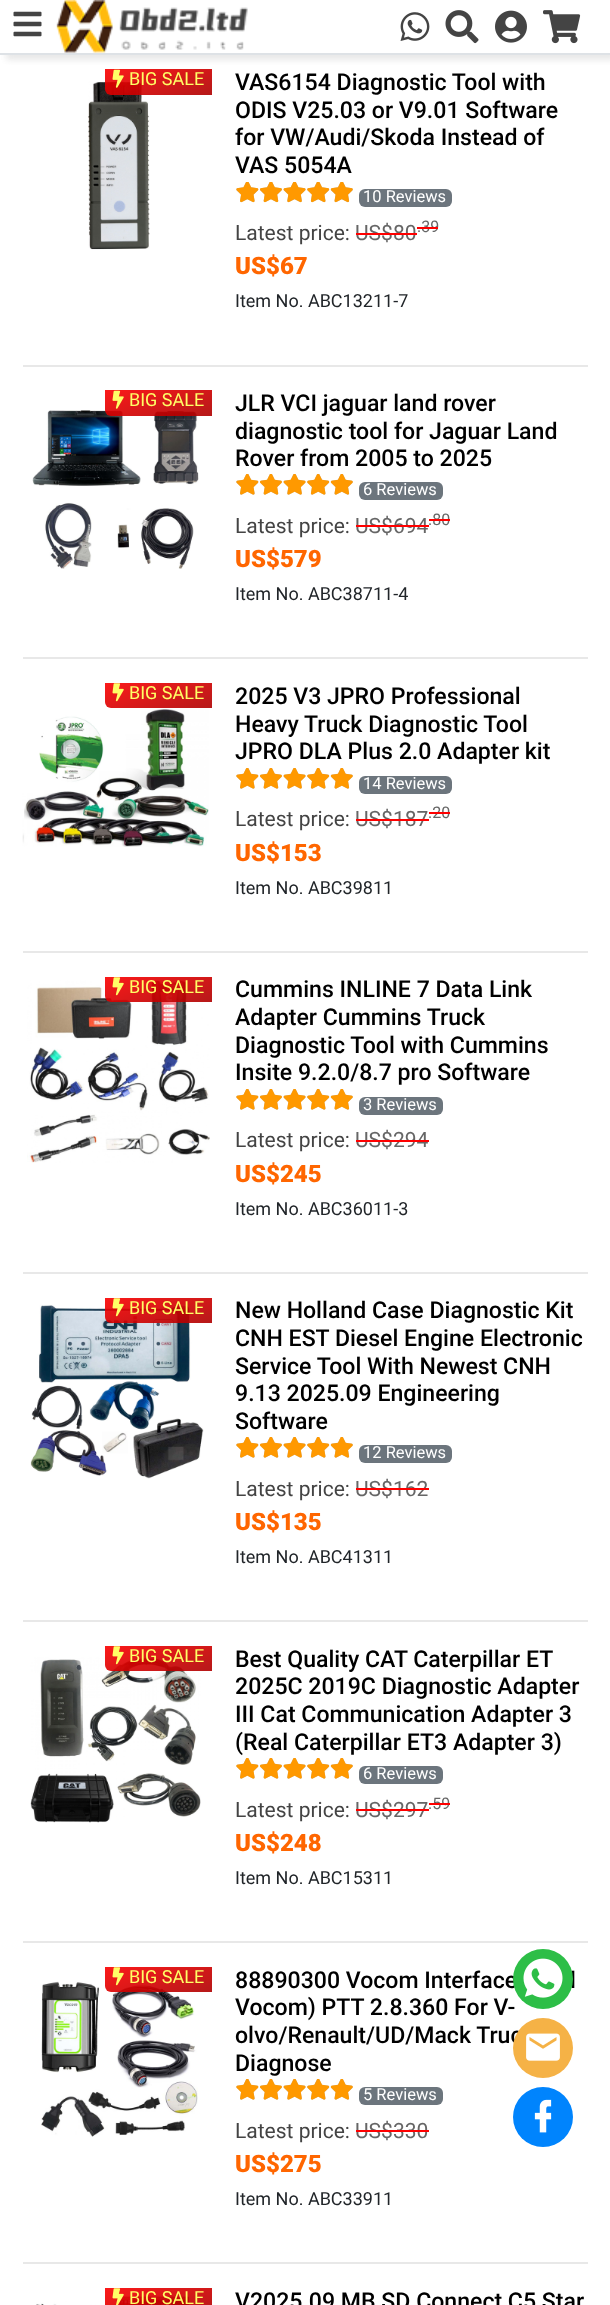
(async () => {
const canvas = document.querySelector("canvas")
canvas.width = 610
canvas.height = 2305
const c = canvas.getContext("2d")
c.miterLimit = 4
c.fontKerning = "normal"
function T(s,x,y){c.fillText(s,x,y)}
function R(x,y,w,h){c.fillRect(x,y,w,h)}
function Q(x,y,w,h,r){c.beginPath();c.roundRect(x,y,w,h,r);c.fill()}
async function I(src,x,y,w,h){const img=new Image();img.src=src;await img.decode();c.drawImage(img,x,y,w,h)}
let gradient
c.fillStyle="#fff"
R(0,0,610,2305)
await I("8.png",88,81,62,169)
gradient = c.createLinearGradient(148,53,169,110)
gradient.addColorStop(0,"#fb0000e6")
gradient.addColorStop(1,"#ae0000e6")
c.fillStyle = gradient
c.beginPath()
c.roundRect(105,69,107,26,[0,0,0,6])
c.fill()
await I("7.png",112,69,12,19)
c.save()
c.beginPath()
c.rect(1,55,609,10)
c.clip()
c.fillStyle="#d2d2d280"
c.filter="blur(3px)"
c.beginPath()
c.rect(6,6,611,54)
c.fill()
c.filter="none"
c.restore()
c.fillStyle="#dee2e6"
R(0,53,610,2)
await I("1.png",13,11,29,26)
await I("2.png",56,0,192,53)
await I("3.png",400,12,30,29)
await I("4.png",445,10,34,34)
await I("5.png",495,10,32,33)
await I("6.png",543,10,38,34)
c.fillStyle="#e8e8e8"
R(23,365,565,2)
c.font="18px Roboto"
c.fillStyle="#ff6"
T("BIG SALE",129,85)
c.font="500 23.1px Roboto"
c.fillStyle="#000"
T("VAS6154 Diagnostic Tool with",235,90)
T("ODIS V25.03 or V9.01 Software",235,118)
T("for VW/Audi/Skoda Instead of",235,145)
T("VAS 5054A",235,173)
await I("9.png",236,182,117,21)
await I("10.png",236,182,117,21)
c.fillStyle="#6c757d"
Q(359,189,93,18,6)
c.font="16.5px Roboto"
c.fillStyle="#fff"
T("10 Reviews",363,202)
c.font="21px Roboto"
c.fillStyle="#444"
T("Latest price:",235,240)
c.fillStyle="#666"
T("US$80",355,240)
c.fillStyle="#f00"
R(356,233,61,2)
c.font="16px Roboto"
c.fillStyle="#666"
T(".39",417,232)
c.fillStyle="#f00"
R(417,227,21,2)
c.font="900 24px Roboto"
c.fillStyle="#f60"
T("US$67",235,274)
c.font="18px Roboto"
c.fillStyle="#212529"
T("Item No. ABC13211-7",235,307)
c.fillStyle="#e8e8e8"
R(23,657,565,2)
await I("12.png",32,410,167,159)
gradient = c.createLinearGradient(148,374,169,431)
gradient.addColorStop(0,"#fb0000e6")
gradient.addColorStop(1,"#ae0000e6")
c.fillStyle = gradient
c.beginPath()
c.roundRect(105,390,107,26,[0,0,0,6])
c.fill()
await I("11.png",112,390,12,19)
c.fillStyle="#ff6"
T("BIG SALE",129,406)
c.font="500 23.1px Roboto"
c.fillStyle="#000"
T("JLR VCI jaguar land rover",235,411)
T("diagnostic tool for Jaguar Land",235,439)
T("Rover from 2005 to 2025",235,466)
await I("13.png",236,474,117,21)
await I("14.png",236,474,117,21)
c.fillStyle="#6c757d"
Q(359,482,84,18,6)
c.font="16.5px Roboto"
c.fillStyle="#fff"
T("6 Reviews",363,495)
c.font="21px Roboto"
c.fillStyle="#444"
T("Latest price:",235,533)
c.fillStyle="#666"
T("US$694",355,533)
c.fillStyle="#f00"
R(356,525,73,2)
c.font="16px Roboto"
c.fillStyle="#666"
T(".80",428,525)
c.fillStyle="#f00"
R(429,519,21,2)
c.font="900 24px Roboto"
c.fillStyle="#f60"
T("US$579",235,567)
c.font="18px Roboto"
c.fillStyle="#212529"
T("Item No. ABC38711-4",235,600)
c.fillStyle="#e8e8e8"
R(23,951,565,2)
gradient = c.createLinearGradient(148,667,169,724)
gradient.addColorStop(0,"#fb1a1a")
gradient.addColorStop(1,"#b61a1a")
c.fillStyle = gradient
c.beginPath()
c.roundRect(105,683,107,25,[0,0,0,6])
c.fill()
await I("15.png",112,683,12,19)
c.fillStyle="#ff6"
T("BIG SALE",129,699)
await I("16.png",22,709,187,138)
c.font="500 23.1px Roboto"
c.fillStyle="#000"
T("2025 V3 JPRO Professional",235,704)
T("Heavy Truck Diagnostic Tool",235,732)
T("JPRO DLA Plus 2.0 Adapter kit",235,759)
await I("13.png",236,768,117,21)
await I("14.png",236,768,117,21)
c.fillStyle="#6c757d"
Q(359,776,93,18,6)
c.font="16.5px Roboto"
c.fillStyle="#fff"
T("14 Reviews",363,789)
c.font="21px Roboto"
c.fillStyle="#444"
T("Latest price:",235,826)
c.fillStyle="#666"
T("US$187",355,826)
c.fillStyle="#f00"
R(356,819,73,2)
c.font="16px Roboto"
c.fillStyle="#666"
T(".20",428,818)
c.fillStyle="#f00"
R(429,812,21,2)
c.font="900 24px Roboto"
c.fillStyle="#f60"
T("US$153",235,861)
c.font="18px Roboto"
c.fillStyle="#212529"
T("Item No. ABC39811",235,894)
c.fillStyle="#e8e8e8"
R(23,1272,565,2)
await I("17.png",27,980,183,183)
gradient = c.createLinearGradient(148,961,169,1018)
gradient.addColorStop(0,"#fb0000e6")
gradient.addColorStop(1,"#ae0000e6")
c.fillStyle = gradient
c.beginPath()
c.roundRect(105,977,107,25,[0,0,0,6])
c.fill()
await I("18.png",112,977,12,19)
c.fillStyle="#ff6"
T("BIG SALE",129,993)
c.font="500 23.1px Roboto"
c.fillStyle="#000"
T("Cummins INLINE 7 Data Link",235,997)
T("Adapter Cummins Truck",235,1025)
T("Diagnostic Tool with Cummins",235,1053)
T("Insite 9.2.0/8.7 pro Software",235,1080)
await I("13.png",236,1089,117,21)
await I("14.png",236,1089,117,21)
c.fillStyle="#6c757d"
Q(359,1097,84,18,6)
c.font="16.5px Roboto"
c.fillStyle="#fff"
T("3 Reviews",363,1110)
c.font="21px Roboto"
c.fillStyle="#444"
T("Latest price:",235,1147)
c.fillStyle="#666"
T("US$294",355,1147)
c.fillStyle="#f00"
R(356,1140,73,2)
c.font="900 24px Roboto"
c.fillStyle="#f60"
T("US$245",235,1182)
c.font="18px Roboto"
c.fillStyle="#212529"
T("Item No. ABC36011-3",235,1215)
c.fillStyle="#e8e8e8"
R(23,1620,565,2)
await I("20.png",30,1304,174,175)
gradient = c.createLinearGradient(148,1282,169,1339)
gradient.addColorStop(0,"#fb0000e6")
gradient.addColorStop(1,"#ae0000e6")
c.fillStyle = gradient
c.beginPath()
c.roundRect(105,1298,107,25,[0,0,0,6])
c.fill()
await I("19.png",112,1298,12,19)
c.fillStyle="#ff6"
T("BIG SALE",129,1314)
c.font="500 23.1px Roboto"
c.fillStyle="#000"
T("New Holland Case Diagnostic Kit",235,1318)
T("CNH EST Diesel Engine Electronic",235,1346)
T("Service Tool With Newest CNH",235,1374)
T("9.13 2025.09 Engineering",235,1401)
T("Software",235,1429)
await I("13.png",236,1437,117,21)
await I("14.png",236,1437,117,21)
c.fillStyle="#6c757d"
Q(359,1445,93,18,6)
c.font="16.5px Roboto"
c.fillStyle="#fff"
T("12 Reviews",363,1458)
c.font="21px Roboto"
c.fillStyle="#444"
T("Latest price:",235,1496)
c.fillStyle="#666"
T("US$162",355,1496)
c.fillStyle="#f00"
R(356,1488,73,2)
c.font="900 24px Roboto"
c.fillStyle="#f60"
T("US$135",235,1530)
c.font="18px Roboto"
c.fillStyle="#212529"
T("Item No. ABC41311",235,1563)
c.fillStyle="#e8e8e8"
R(23,1941,565,2)
await I("22.png",30,1657,171,166)
gradient = c.createLinearGradient(148,1630,169,1687)
gradient.addColorStop(0,"#fb0000e6")
gradient.addColorStop(1,"#ae0000e6")
c.fillStyle = gradient
c.beginPath()
c.roundRect(105,1646,107,25,[0,0,0,6])
c.fill()
await I("21.png",112,1646,12,19)
c.fillStyle="#ff6"
T("BIG SALE",129,1662)
c.font="500 23.1px Roboto"
c.fillStyle="#000"
T("Best Quality CAT Caterpillar ET",235,1667)
T("2025C 2019C Diagnostic Adapter",235,1694)
T("III Cat Communication Adapter 3",235,1722)
T("(Real Caterpillar ET3 Adapter 3)",235,1750)
await I("13.png",236,1758,117,21)
await I("14.png",236,1758,117,21)
c.fillStyle="#6c757d"
Q(359,1766,84,18,6)
c.font="16.5px Roboto"
c.fillStyle="#fff"
T("6 Reviews",363,1779)
c.font="21px Roboto"
c.fillStyle="#444"
T("Latest price:",235,1817)
c.fillStyle="#666"
T("US$297",355,1817)
c.fillStyle="#f00"
R(356,1809,73,2)
c.font="16px Roboto"
c.fillStyle="#666"
T(".59",428,1809)
c.fillStyle="#f00"
R(429,1803,21,2)
c.font="900 24px Roboto"
c.fillStyle="#f60"
T("US$248",235,1851)
c.font="18px Roboto"
c.fillStyle="#212529"
T("Item No. ABC15311",235,1884)
c.fillStyle="#e8e8e8"
R(23,2262,565,2)
await I("23.png",41,1981,157,156)
gradient = c.createLinearGradient(148,1951,169,2008)
gradient.addColorStop(0,"#fb0000e6")
gradient.addColorStop(1,"#ae0000e6")
c.fillStyle = gradient
c.beginPath()
c.roundRect(105,1967,107,25,[0,0,0,6])
c.fill()
await I("18.png",112,1967,12,19)
c.fillStyle="#ff6"
T("BIG SALE",129,1983)
c.font="500 23.1px Roboto"
c.fillStyle="#000"
T("88890300 Vocom Interface",235,1988)
T("l",570,1988)
T("Vocom) PTT 2.8.360 For V-",235,2015)
T("olvo/Renault/UD/Mack Truc",235,2043)
T("Diagnose",235,2071)
await I("13.png",236,2079,117,21)
await I("14.png",236,2079,117,21)
c.fillStyle="#6c757d"
Q(359,2087,84,18,6)
c.font="16.5px Roboto"
c.fillStyle="#fff"
T("5 Reviews",363,2100)
c.font="21px Roboto"
c.fillStyle="#444"
T("Latest price:",235,2138)
c.fillStyle="#666"
T("US$330",355,2138)
c.fillStyle="#f00"
R(356,2130,73,2)
c.font="900 24px Roboto"
c.fillStyle="#f60"
T("US$275",235,2172)
c.font="18px Roboto"
c.fillStyle="#212529"
T("Item No. ABC33911",235,2205)
await I("25.png",36,2296,154,9)
gradient = c.createLinearGradient(148,2272,169,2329)
gradient.addColorStop(0,"#fb0000e6")
gradient.addColorStop(1,"#ae0000e6")
c.fillStyle = gradient
R(105,2288,107,17)
await I("24.png",112,2288,12,17)
c.fillStyle="#ff6"
T("BIG SALE",129,2304)
c.font="500 23.1px Roboto"
c.fillStyle="#000"
T("V2025.09 MB SD Connect C5 Star",235,2309)
c.fillStyle="#2dbe47"
c.beginPath()
c.arc(543,1979,30,0,7)
c.fill()
await I("26.png",523,1958,40,40)
c.fillStyle="#f5b246"
c.beginPath()
c.arc(543,2048,30,0,7)
c.fill()
await I("27.png",526,2033,34,28)
c.fillStyle="#0084fd"
c.beginPath()
c.arc(543,2117,30,0,7)
c.fill()
await I("28.png",534,2099,18,34)
})()
